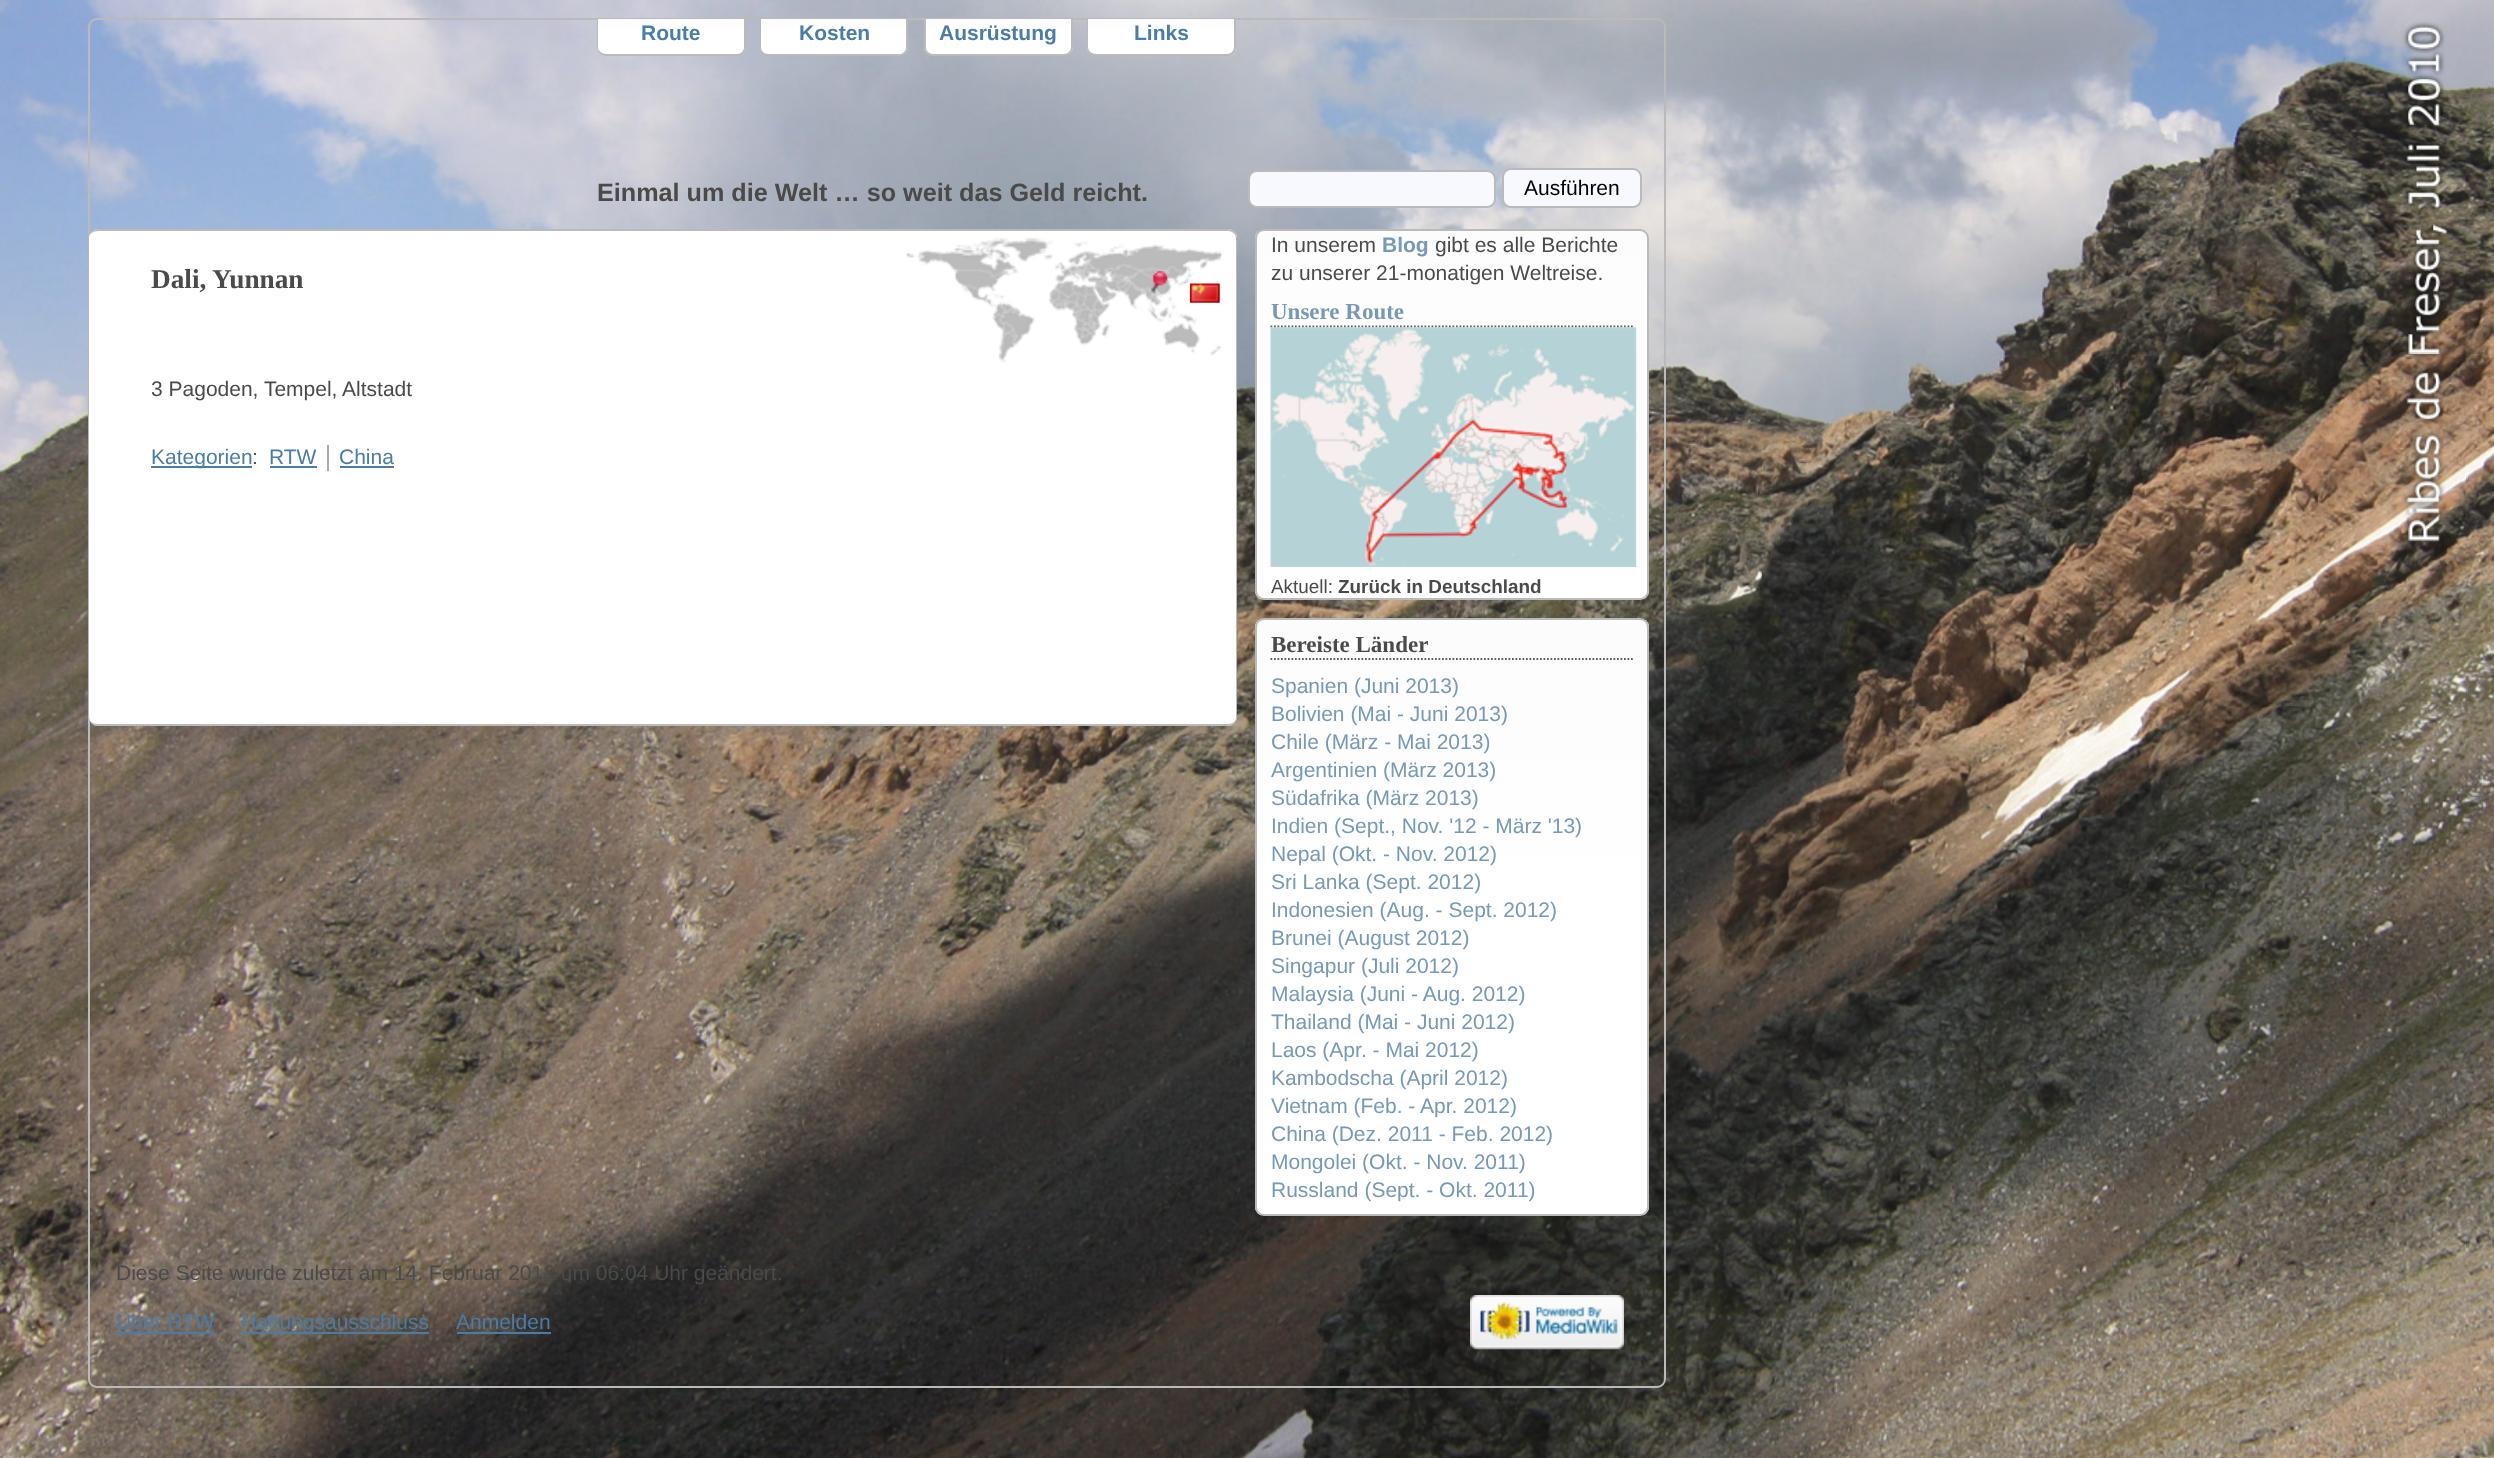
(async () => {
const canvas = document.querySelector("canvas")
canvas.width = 2494
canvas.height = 1458
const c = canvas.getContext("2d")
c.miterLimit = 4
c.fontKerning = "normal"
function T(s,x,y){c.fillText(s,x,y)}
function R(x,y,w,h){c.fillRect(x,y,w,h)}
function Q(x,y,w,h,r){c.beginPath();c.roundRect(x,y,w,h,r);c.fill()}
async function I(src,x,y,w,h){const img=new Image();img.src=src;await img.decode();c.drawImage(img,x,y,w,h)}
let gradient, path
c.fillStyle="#fff"
R(0,0,2494,1458)
await I("1.png",0,0,2494,1458)
c.beginPath()
c.roundRect(89,19,1576,1368,8)
c.strokeStyle="#bababa"
c.lineWidth=2
c.stroke()
c.save()
c.beginPath()
c.roundRect(597,19,149,37,[0,0,9,9])
c.clip()
gradient = c.createLinearGradient(599,19,599,54)
gradient.addColorStop(0,"#fcfcfc")
gradient.addColorStop(.47,"#fff")
gradient.addColorStop(1,"#fff")
c.fillStyle = gradient
R(597,19,149,35)
c.restore()
c.fillStyle="#bababa"
path = new Path2D("M597 19h149v28c0 5-4 9-9 9h-131c-5 0-9-4-9-9zm1 0h146v28c0 4-3 7-7 7h-131c-4 0-8-3-8-7z")
c.fill(path,"evenodd")
c.font="bold 21px Liberation Sans"
c.fillStyle="#497ca7"
T("Route",641,40)
c.save()
c.beginPath()
c.roundRect(760,19,148,37,[0,0,9,9])
c.clip()
gradient = c.createLinearGradient(761,19,761,54)
gradient.addColorStop(0,"#fcfcfc")
gradient.addColorStop(.47,"#fff")
gradient.addColorStop(1,"#fff")
c.fillStyle = gradient
R(760,19,148,35)
c.restore()
c.fillStyle="#bababa"
path = new Path2D("M760 19h148v28c0 5-4 9-8 9h-132c-5 0-8-4-8-9zm1 0h145v28c0 4-3 7-6 7h-132c-4 0-7-3-7-7z")
c.fill(path,"evenodd")
c.fillStyle="#497ca7"
T("Kosten",799,40)
c.save()
c.beginPath()
c.roundRect(924,19,149,37,[0,0,9,9])
c.clip()
gradient = c.createLinearGradient(926,19,926,54)
gradient.addColorStop(0,"#fcfcfc")
gradient.addColorStop(.47,"#fff")
gradient.addColorStop(1,"#fff")
c.fillStyle = gradient
R(924,19,149,35)
c.restore()
c.fillStyle="#bababa"
path = new Path2D("M924 19h149v28c0 5-4 9-9 9h-131c-5 0-9-4-9-9zm2 0h145v28c0 4-3 7-7 7h-131c-4 0-7-3-7-7z")
c.fill(path,"evenodd")
c.fillStyle="#497ca7"
T("Ausrüstung",939,40)
c.save()
c.beginPath()
c.roundRect(1087,19,149,37,[0,0,9,9])
c.clip()
gradient = c.createLinearGradient(1089,19,1089,54)
gradient.addColorStop(0,"#fcfcfc")
gradient.addColorStop(.47,"#fff")
gradient.addColorStop(1,"#fff")
c.fillStyle = gradient
R(1087,19,149,35)
c.restore()
c.fillStyle="#bababa"
path = new Path2D("M1087 19h149v28c0 5-4 9-9 9h-131c-5 0-9-4-9-9zm1 0h146v28c0 4-3 7-7 7h-131c-4 0-8-3-8-7z")
c.fill(path,"evenodd")
c.fillStyle="#497ca7"
T("Links",1134,40)
c.font="bold 25.2px Liberation Sans"
c.fillStyle="#4a4a49"
T("Einmal um die Welt … so weit das Geld reicht.",597,201)
c.fillStyle="#f8f8ff"
c.beginPath()
c.roundRect(1249,171,246,36,8)
c.fill()
c.stroke()
c.beginPath()
c.roundRect(1503,169,138,38,8)
c.fill()
c.stroke()
c.font="21px Liberation Sans"
c.fillStyle="#000"
T("Ausführen",1524,195)
c.fillStyle="#fff"
Q(89,229,1148,497,9)
c.fillStyle="#bababa"
path = new Path2D("M98 229h1130c5 0 9 4 9 9v480c0 4-4 8-9 8h-1130c-5 0-9-4-9-8v-480c0-5 4-9 9-9zm0 2h1130c4 0 8 3 8 7v480c0 3-4 6-8 6h-1130c-5 0-9-3-9-6v-480c0-4 4-7 9-7z")
c.fill(path,"evenodd")
c.font="bold 27.25px Liberation Serif"
c.fillStyle="#4a4a49"
T("Dali, Yunnan",151,288)
await I("2.png",906,237,316,126)
await I("3.png",1151,271,17,25)
await I("4.png",1190,283,30,20)
c.font="21px Liberation Sans"
T("3 Pagoden, Tempel, Altstadt",151,396)
c.fillStyle="#497ca7"
R(151,466,101,2)
T("Kategorien",151,464)
c.fillStyle="#4a4a49"
T(":",252,464)
c.fillStyle="#497ca7"
T("RTW",269,464)
R(270,466,47,2)
c.fillStyle="#aaa"
R(327,445,2,26)
c.fillStyle="#497ca7"
T("China",339,464)
R(340,466,54,2)
c.save()
c.beginPath()
c.roundRect(1255,229,394,371,9)
c.clip()
gradient = c.createLinearGradient(1257,231,1257,599)
gradient.addColorStop(0,"#fcfcfc")
gradient.addColorStop(.47,"#fff")
gradient.addColorStop(1,"#fff")
c.fillStyle = gradient
R(1255,231,394,368)
c.restore()
c.beginPath()
c.roundRect(1256,230,392,369,8)
c.stroke()
c.fillStyle="#4a4a49"
T("In unserem",1271,252)
c.font="bold 21px Liberation Sans"
c.fillStyle="#7599b7"
T("Blog",1382,252)
c.font="21px Liberation Sans"
c.fillStyle="#4a4a49"
T("gibt es alle Berichte",1435,252)
T("zu unserer 21-monatigen Weltreise.",1271,280)
path = new Path2D("M1270.5 326.5h362.5")
c.strokeStyle="#5e5d5d"
c.lineWidth=1.8
c.setLineDash([1.75,1.75])
c.stroke(path)
c.font="bold 23px Liberation Serif"
c.fillStyle="#7599b7"
T("Unsere Route",1271,319)
await I("5.png",1270,327,367,240)
c.font="18.9px Liberation Sans"
c.fillStyle="#4a4a49"
T("Aktuell:",1271,593)
c.font="bold 18.9px Liberation Sans"
T("Zurück in Deutschland",1338,593)
c.save()
c.beginPath()
c.roundRect(1255,618,394,598,9)
c.clip()
gradient = c.createLinearGradient(1257,620,1257,1215)
gradient.addColorStop(0,"#fcfcfc")
gradient.addColorStop(.47,"#fff")
gradient.addColorStop(1,"#fff")
c.fillStyle = gradient
R(1255,620,394,595)
c.restore()
c.beginPath()
c.roundRect(1256,619,392,596,8)
c.strokeStyle="#bababa"
c.lineWidth=2
c.setLineDash([])
c.stroke()
path = new Path2D("M1270.5 659h362.5")
c.strokeStyle="#5e5d5d"
c.lineWidth=1.8
c.setLineDash([1.75,1.75])
c.stroke(path)
c.font="bold 23px Liberation Serif"
T("Bereiste Länder",1271,652)
c.font="21px Liberation Sans"
c.fillStyle="#7599b7"
T("Spanien (Juni 2013)",1271,693)
T("Bolivien (Mai - Juni 2013)",1271,721)
T("Chile (März - Mai 2013)",1271,749)
T("Argentinien (März 2013)",1271,777)
T("Südafrika (März 2013)",1271,805)
T("Indien (Sept., Nov. '12 - März '13)",1271,833)
T("Nepal (Okt. - Nov. 2012)",1271,861)
T("Sri Lanka (Sept. 2012)",1271,889)
T("Indonesien (Aug. - Sept. 2012)",1271,917)
T("Brunei (August 2012)",1271,945)
T("Singapur (Juli 2012)",1271,973)
T("Malaysia (Juni - Aug. 2012)",1271,1001)
T("Thailand (Mai - Juni 2012)",1271,1029)
T("Laos (Apr. - Mai 2012)",1271,1057)
T("Kambodscha (April 2012)",1271,1085)
T("Vietnam (Feb. - Apr. 2012)",1271,1113)
T("China (Dez. 2011 - Feb. 2012)",1271,1141)
T("Mongolei (Okt. - Nov. 2011)",1271,1169)
T("Russland (Sept. - Okt. 2011)",1271,1197)
c.fillStyle="#4a4a49"
T("Diese Seite wurde zuletzt am 14. Februar 2012 um 06:04 Uhr geändert.",116,1280)
c.fillStyle="#497ca7"
T("Über RTW",116,1329)
R(116,1332,98,2)
R(242,1332,187,2)
T("Haftungsausschluss",241,1329)
T("Anmelden",456,1329)
R(457,1332,94,2)
await I("6.png",1470,1295,154,55)
})()
